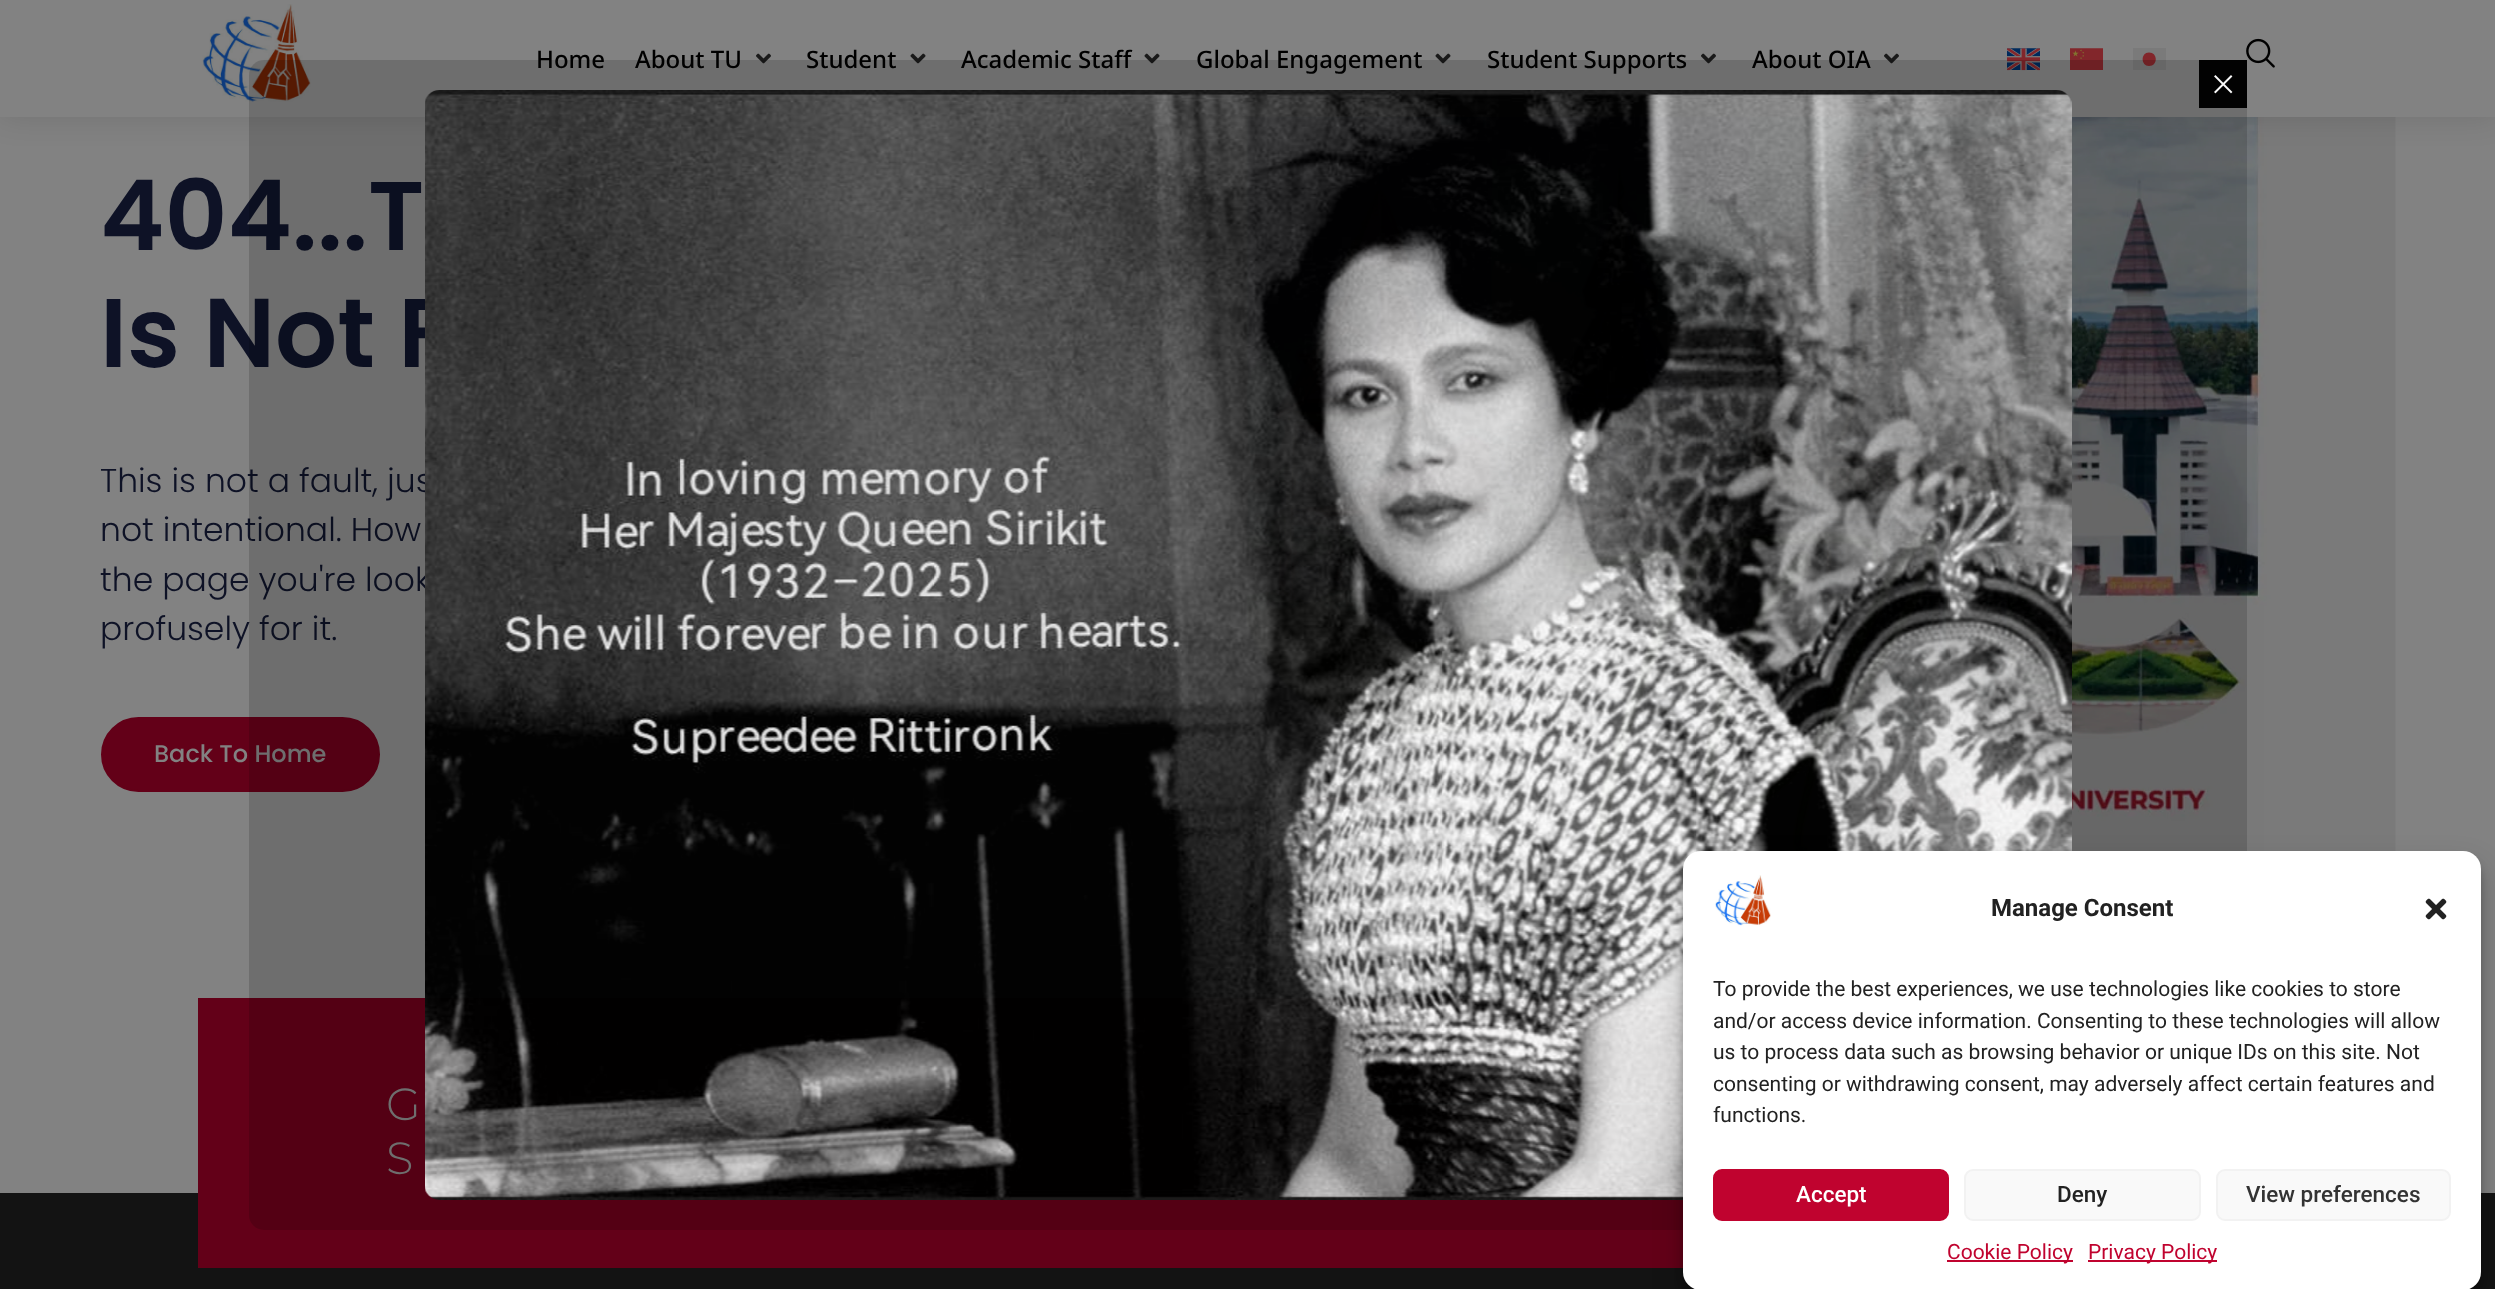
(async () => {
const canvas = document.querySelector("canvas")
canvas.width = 2495
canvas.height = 1289
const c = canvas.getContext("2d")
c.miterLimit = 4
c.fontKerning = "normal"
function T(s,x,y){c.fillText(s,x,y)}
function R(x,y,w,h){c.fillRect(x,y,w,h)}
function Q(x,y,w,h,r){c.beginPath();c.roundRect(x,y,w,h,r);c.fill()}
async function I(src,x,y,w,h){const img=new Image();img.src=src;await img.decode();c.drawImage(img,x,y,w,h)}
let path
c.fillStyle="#828282"
R(0,0,2495,1289)
await I("9.png",1110,117,1286,881)
c.fillStyle="#0000001f"
c.filter="blur(15px)"
c.beginPath()
c.rect(0,0,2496,117)
c.fill()
c.filter="none"
c.fillStyle="#828282"
R(0,0,2495,117)
await I("1.png",202,4,109,98)
c.font="500 24px Noto Sans"
c.fillStyle="#000"
T("Home",536,68)
T("About TU",635,68)
await I("2.png",756,53,15,11)
T("Student",806,68)
await I("3.png",910,53,16,11)
T("Academic Staff",961,68)
await I("3.png",1144,53,16,11)
T("Global Engagement",1196,68)
await I("3.png",1435,53,16,11)
T("Student Supports",1487,68)
await I("2.png",1701,53,15,11)
T("About OIA",1752,68)
await I("2.png",1884,53,15,11)
await I("4.png",2007,48,33,23)
await I("5.png",2070,48,33,22)
c.fillStyle="#7a7a7a"
R(2133,48,33,22)
c.fillStyle="#82262b"
path = new Path2D("M2149 66c9 0 9-13.5 0-13.5c-8.5 0-8.5 13.5 0 13.5z")
c.fill(path)
await I("6.png",2246,38,29,30)
c.font="600 97.5px Poppins"
c.fillStyle="#0e1226"
T("404...T",100,250)
T("Is Not F",100,367)
c.font="300 33px Poppins"
T("This is not a fault, jus",100,492)
T("not intentional. How",100,541)
T("the page you're look",100,591)
T("profusely for it.",100,640)
c.fillStyle="#630018"
c.beginPath()
c.roundRect(102,718,277,73,36.5)
c.fill()
c.strokeStyle="#630018"
c.lineWidth=2
c.stroke()
c.font="500 24px Poppins"
c.fillStyle="#828282"
T("Back To Home",154,762)
c.fillStyle="#131313"
R(0,1193,2495,96)
c.fillStyle="#630018"
R(198,998,1485,270)
c.font="300 45px Montserrat"
c.fillStyle="#828282"
T("G",386,1120)
T("S",386,1174)
c.strokeStyle="#828282"
c.strokeRect(1336,1104,510,58)
c.fillStyle="#00000026"
Q(249,60,1998,1170,15)
await I("7.png",425,90,1647,1110)
c.fillStyle="#020202"
R(2199,60,48,48)
await I("8.png",2214,75,19,19)
c.fillStyle="#0000003b"
c.filter="blur(4.5px)"
c.beginPath()
c.roundRect(1683,860,798,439,18)
c.fill()
c.filter="none"
c.fillStyle="#00000030"
c.filter="blur(15px)"
c.beginPath()
c.roundRect(1683,866,798,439,18)
c.fill()
c.filter="none"
c.fillStyle="#fff"
Q(1683,851,798,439,18)
await I("10.png",1715,875,56,51)
c.font="bold 24px Roboto"
c.fillStyle="#222"
T("Manage Consent",1991,916)
await I("11.png",2425,898,22,22)
c.font="21px Roboto"
T("To provide the best experiences, we use technologies like cookies to store",1713,996)
T("and/or access device information. Consenting to these technologies will allow",1713,1028)
T("us to process data such as browsing behavior or unique IDs on this site. Not",1713,1059)
T("consenting or withdrawing consent, may adversely affect certain features and",1713,1091)
T("functions.",1713,1122)
c.fillStyle="#c0032f"
c.beginPath()
c.roundRect(1714,1170,234,50,8)
c.fill()
c.strokeStyle="#c0032f"
c.stroke()
c.font="500 22.5px Roboto"
c.fillStyle="#fff"
T("Accept",1796,1202)
c.fillStyle="#f9f9f9"
c.beginPath()
c.roundRect(1965,1170,235,50,8)
c.fill()
c.strokeStyle="#f2f2f2"
c.stroke()
c.fillStyle="#222"
T("Deny",2057,1202)
c.fillStyle="#f9f9f9"
c.beginPath()
c.roundRect(2217,1170,233,50,8)
c.fill()
c.stroke()
c.fillStyle="#333"
T("View preferences",2246,1202)
c.fillStyle="#c0032f"
R(1947,1260,126,2)
c.font="21px Roboto"
T("Cookie Policy",1947,1259)
R(2088,1260,129,2)
T("Privacy Policy",2088,1259)
})()
